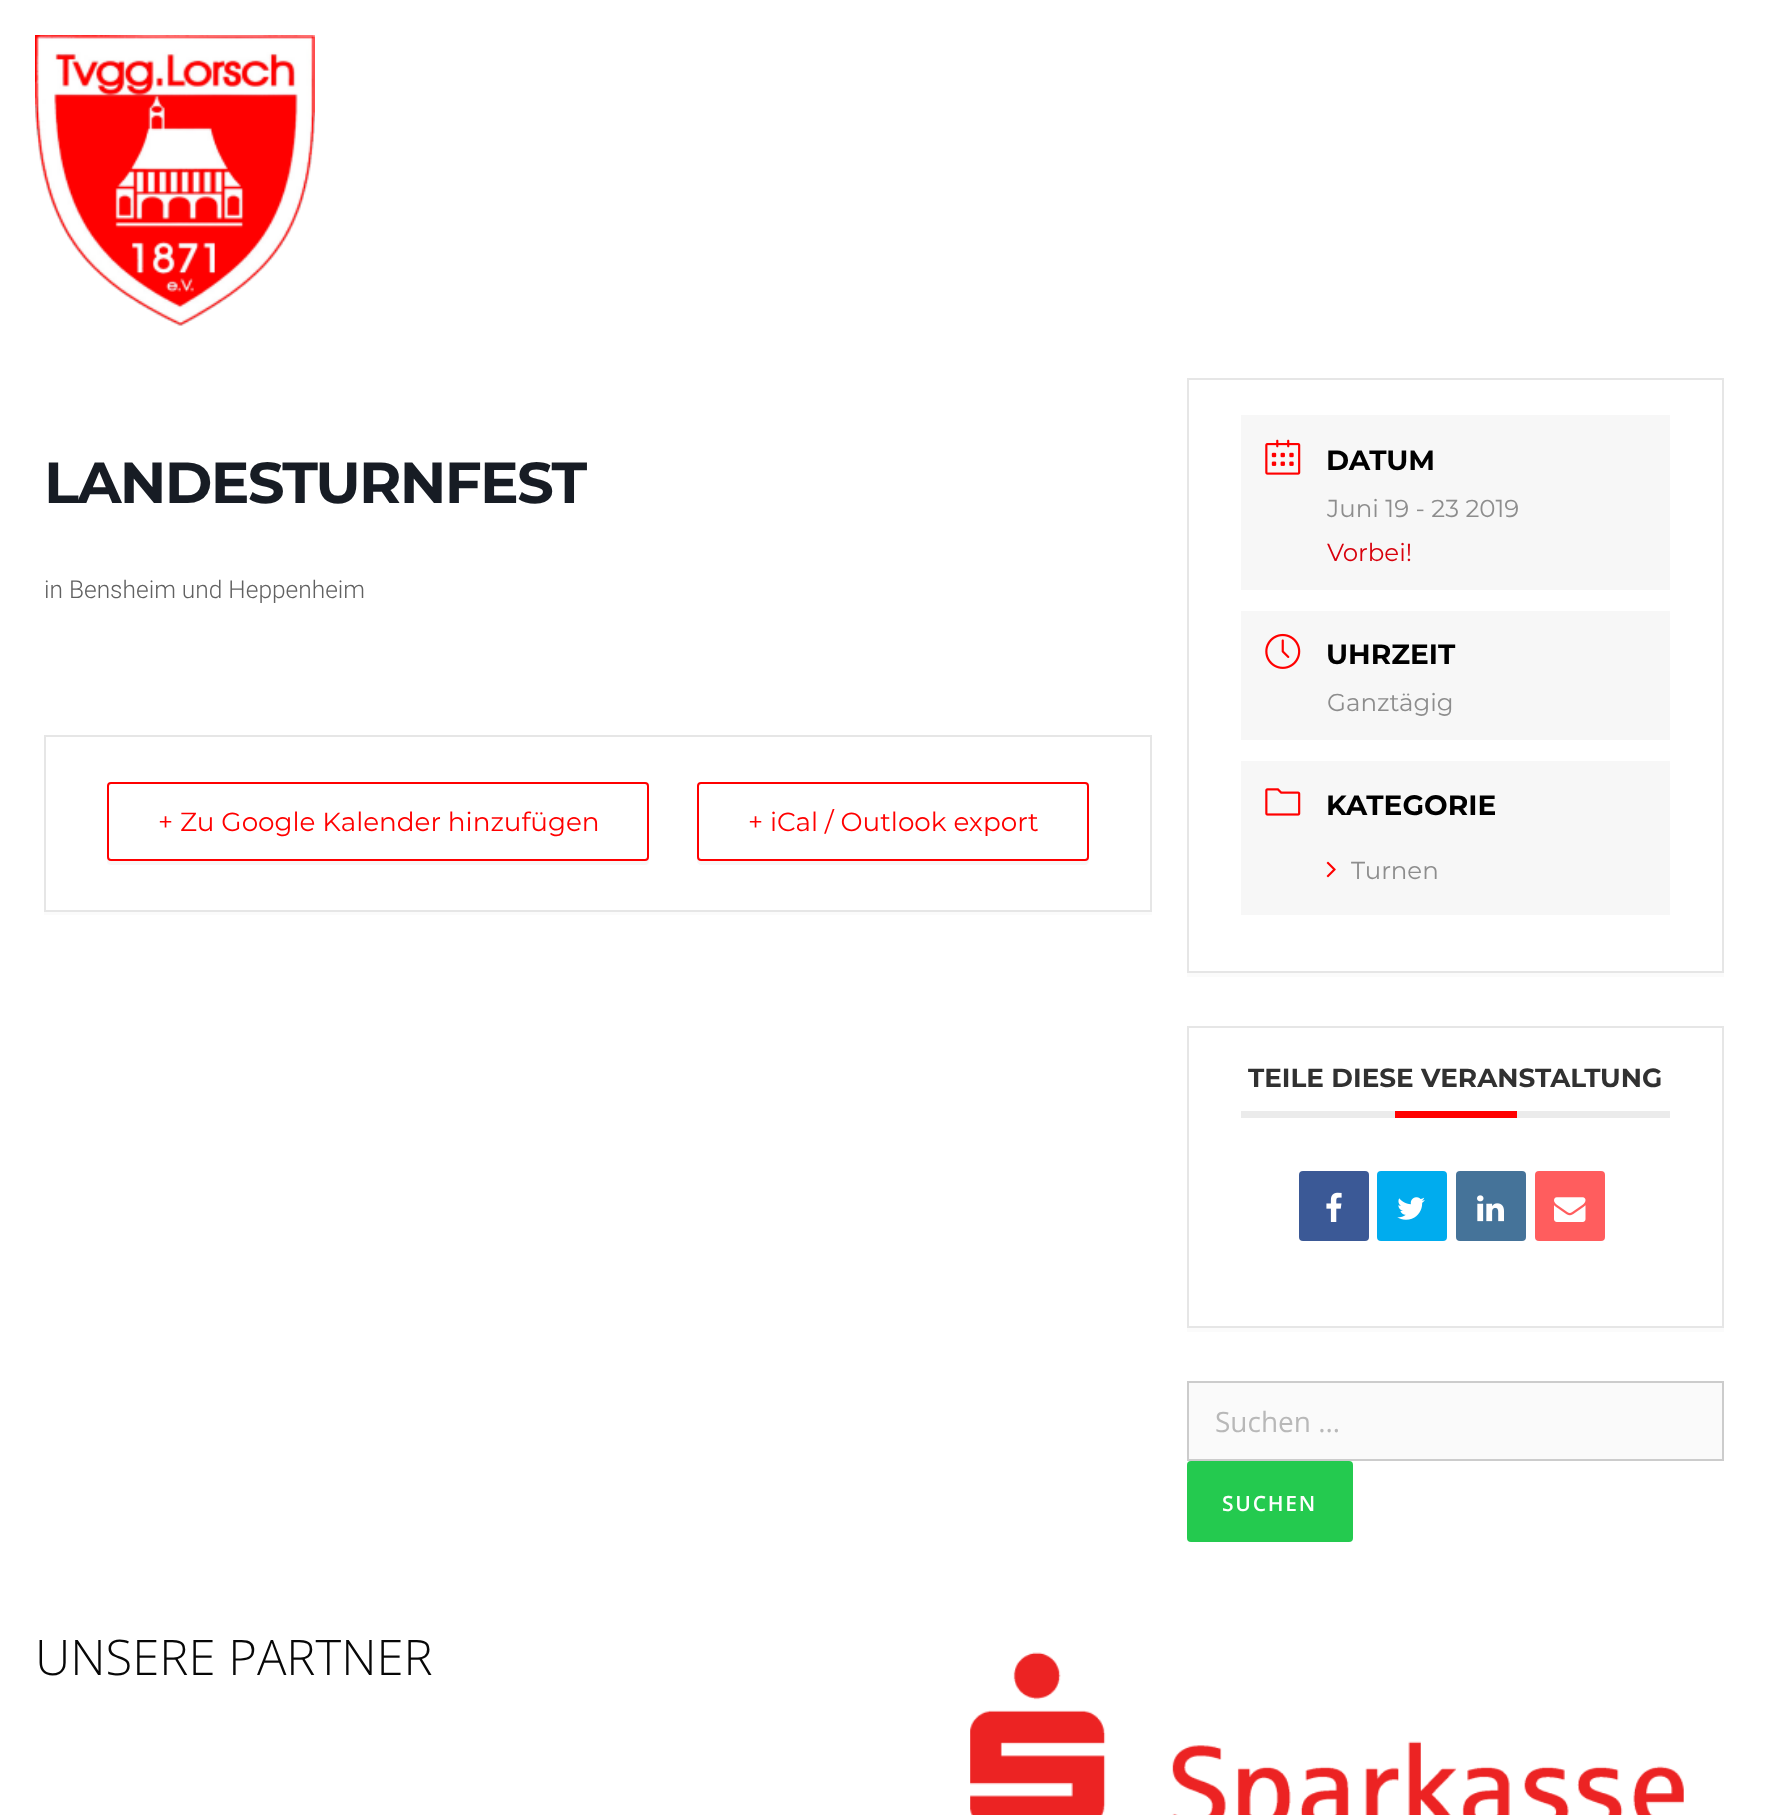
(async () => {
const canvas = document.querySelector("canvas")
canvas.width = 1767
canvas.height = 1815
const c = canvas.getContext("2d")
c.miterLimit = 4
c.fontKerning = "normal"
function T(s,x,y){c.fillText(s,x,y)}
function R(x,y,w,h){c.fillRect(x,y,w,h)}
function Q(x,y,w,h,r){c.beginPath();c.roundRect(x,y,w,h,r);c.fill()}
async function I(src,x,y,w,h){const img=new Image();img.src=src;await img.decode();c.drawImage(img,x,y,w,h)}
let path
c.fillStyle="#fff"
R(0,0,1767,1815)
await I("1.png",35,35,280,291)
c.letterSpacing="-1.75px"
c.font="bold 57.75px Montserrat"
c.fillStyle="#171c24"
T("LANDESTURNFEST",44,503)
c.letterSpacing="0px"
c.font="300 24.5px Roboto"
c.fillStyle="#616161"
T("in Bensheim und Heppenheim",44,598)
c.fillStyle="#fbfbfb"
path = new Path2D("M44 912v3h1108v-176v173z")
c.fill(path)
c.strokeStyle="#e6e6e6"
c.lineWidth=2
c.strokeRect(45,736,1106,175)
c.fillStyle="#f7f7f7"
path = new Path2D("M107 859c0 3 0 6 4 6h534c4 0 4-3 4-6c-1 1-2 2-3 2h-536c-1 0-2-1-3-2z")
c.fill(path)
c.beginPath()
c.roundRect(108,783,540,77,3)
c.strokeStyle="#f00"
c.stroke()
c.font="26.25px Montserrat"
c.fillStyle="#f00"
T("+ Zu Google Kalender hinzufügen",158,831)
c.fillStyle="#f7f7f7"
path = new Path2D("M697 859v2c0 2 2 4 4 4h384c2 0 4-2 4-4v-71l-1-2v70c0 1-1 3-3 3h-385c-1 0-2-1-3-2z")
c.fill(path)
c.fillStyle="#fff"
c.beginPath()
c.roundRect(698,783,390,77,3)
c.fill()
c.stroke()
c.fillStyle="#f00"
T("+ iCal / Outlook export",748,831)
c.fillStyle="#fbfbfb"
path = new Path2D("M1187 973v4h537v-595v591z")
c.fill(path)
c.strokeStyle="#e6e6e6"
c.strokeRect(1188,379,535,593)
c.fillStyle="#f7f7f7"
R(1241,415,429,175)
await I("2.png",1265,439,36,36)
c.font="bold 28px Montserrat"
c.fillStyle="#000"
T("DATUM",1326,470)
c.font="24.5px Montserrat"
c.fillStyle="#8d8d8d"
T("Juni 19 - 23 2019",1327,517)
c.fillStyle="#d8000c"
T("Vorbei!",1327,561)
c.fillStyle="#f7f7f7"
R(1241,611,429,129)
await I("3.png",1265,633,36,36)
c.font="bold 28px Montserrat"
c.fillStyle="#000"
T("UHRZEIT",1326,664)
c.font="24.5px Montserrat"
c.fillStyle="#8d8d8d"
T("Ganztägig",1327,711)
c.fillStyle="#f7f7f7"
R(1241,761,429,154)
await I("4.png",1265,788,36,28)
c.font="bold 28px Montserrat"
c.fillStyle="#000"
T("KATEGORIE",1326,815)
await I("5.png",1326,861,10,17)
c.font="24.5px Montserrat"
c.fillStyle="#8d8d8d"
T("Turnen",1351,879)
c.fillStyle="#fbfbfb"
path = new Path2D("M1187 1328v4h537v-303v299z")
c.fill(path)
c.strokeRect(1188,1027,535,300)
c.fillStyle="#ebebeb"
R(1241,1111,429,7)
c.font="bold 26.25px Montserrat"
c.fillStyle="#313131"
T("TEILE DIESE VERANSTALTUNG",1248,1087)
c.fillStyle="#f00"
R(1395,1111,122,7)
c.fillStyle="#3b5996"
Q(1299,1171,70,70,4)
await I("6.png",1326,1192,16,30)
c.fillStyle="#00acee"
Q(1377,1171,70,70,4)
await I("7.png",1397,1197,28,23)
c.fillStyle="#457399"
Q(1456,1171,70,70,4)
await I("8.png",1477,1195,27,27)
c.fillStyle="#ff5d5e"
Q(1535,1171,70,70,4)
await I("9.png",1554,1197,32,25)
c.fillStyle="#fafafa"
c.beginPath()
c.rect(1188,1382,535,78)
c.fill()
c.strokeStyle="#ccc"
c.stroke()
c.font="28px Open Sans"
c.fillStyle="#b8b8b8"
T("Suchen …",1215,1432)
c.fillStyle="#24ca4f"
Q(1187,1461,166,81,4)
c.letterSpacing="1.75px"
c.font="600 21px Open Sans"
c.fillStyle="#fff"
T("SUCHEN",1222,1511)
c.letterSpacing="0px"
c.font="300 49px Open Sans"
c.fillStyle="#070707"
T("UNSERE PARTNER",35,1675)
await I("10.png",970,1652,714,163)
})()
